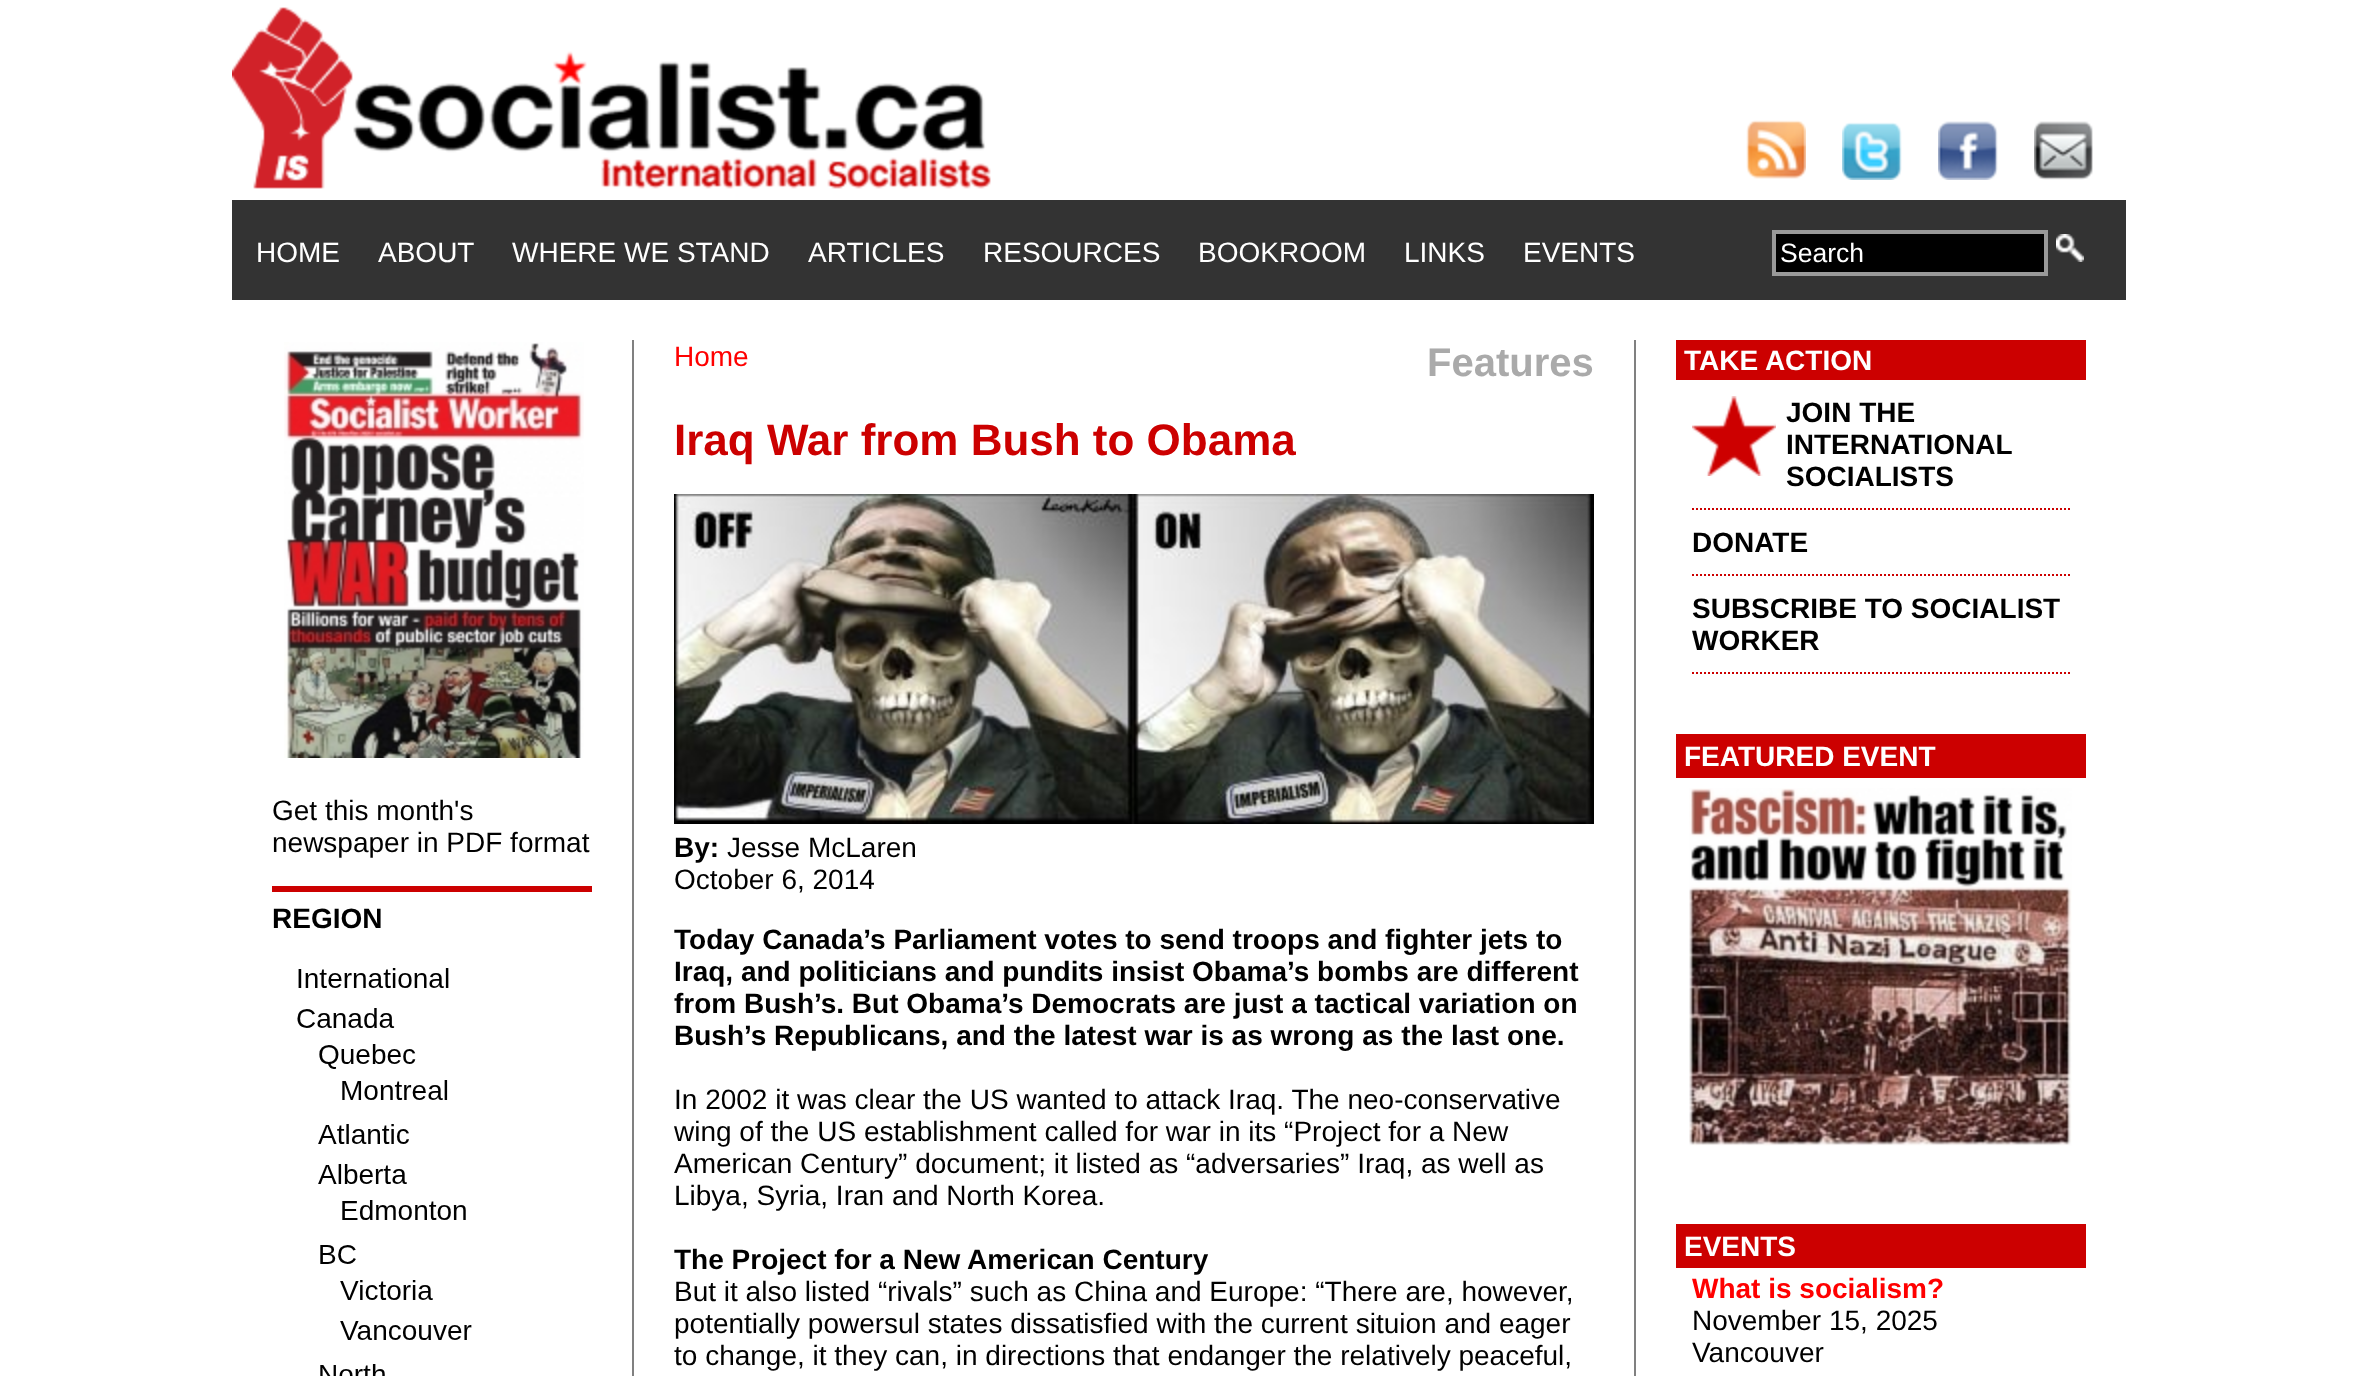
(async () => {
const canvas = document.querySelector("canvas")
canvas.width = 2357
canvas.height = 1376
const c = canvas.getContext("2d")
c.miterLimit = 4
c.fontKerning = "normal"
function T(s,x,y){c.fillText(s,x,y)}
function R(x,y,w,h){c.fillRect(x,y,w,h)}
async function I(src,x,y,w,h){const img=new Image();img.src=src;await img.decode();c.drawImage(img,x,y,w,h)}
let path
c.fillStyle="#fff"
R(0,0,2357,1376)
await I("1.png",232,7,759,182)
await I("2.png",1746,120,60,59)
await I("3.png",1842,122,60,58)
await I("4.png",1938,121,60,59)
await I("5.png",2034,121,59,59)
c.fillStyle="#333"
R(232,200,1894,100)
c.font="28px Liberation Sans"
c.fillStyle="#fff"
T("HOME",256,262)
T("ABOUT",378,262)
T("WHERE WE STAND",512,262)
T("ARTICLES",808,262)
T("RESOURCES",983,262)
T("BOOKROOM",1198,262)
T("LINKS",1404,262)
T("EVENTS",1523,262)
c.fillStyle="#000"
c.beginPath()
c.rect(1774,232,272,42)
c.fill()
c.strokeStyle="#999"
c.lineWidth=4
c.stroke()
c.font="26.5px Liberation Sans"
c.fillStyle="#fff"
T("Search",1780,262)
await I("6.png",2056,234,28,28)
await I("7.png",284,342,300,416)
c.font="28px Liberation Sans"
c.fillStyle="#000"
T("Get this month's",272,820)
T("newspaper in PDF format",272,852)
c.fillStyle="#c00"
R(272,886,320,6)
c.font="bold 28px Liberation Sans"
c.fillStyle="#000"
T("REGION",272,928)
await I("8.png",297,968,175,408)
c.fillStyle="#808080"
R(1634,340,2,1036)
R(632,340,2,1036)
c.font="28px Liberation Sans"
c.fillStyle="#f00"
T("Home",674,366)
c.font="bold 40px Liberation Sans"
c.fillStyle="#aaa"
T("Features",1427,376)
c.font="bold 44px Liberation Sans"
c.fillStyle="#c00"
T("Iraq War from Bush to Obama",674,455)
await I("9.png",674,494,920,330)
c.font="bold 28px Liberation Sans"
c.fillStyle="#000"
T("By:",674,857)
c.font="28px Liberation Sans"
T("Jesse McLaren",727,857)
T("October 6, 2014",674,889)
c.font="bold 28px Liberation Sans"
T("Today Canada’s Parliament votes to send troops and fighter jets to",674,949)
T("Iraq, and politicians and pundits insist Obama’s bombs are different",674,981)
T("from Bush’s. But Obama’s Democrats are just a tactical variation on",674,1013)
T("Bush’s Republicans, and the latest war is as wrong as the last one.",674,1045)
c.font="28px Liberation Sans"
T("In 2002 it was clear the US wanted to attack Iraq. The neo-conservative",674,1109)
T("wing of the US establishment called for war in its “Project for a New",674,1141)
T("American Century” document; it listed as “adversaries” Iraq, as well as",674,1173)
T("Libya, Syria, Iran and North Korea.",674,1205)
c.font="bold 28px Liberation Sans"
T("The Project for a New American Century",674,1269)
c.font="28px Liberation Sans"
T("But it also listed “rivals” such as China and Europe: “There are, however,",674,1301)
T("potentially powersul states dissatisfied with the current situion and eager",674,1333)
T("to change, it they can, in directions that endanger the relatively peaceful,",674,1365)
c.fillStyle="#c00"
R(1676,340,410,40)
c.font="bold 28px Liberation Sans"
c.fillStyle="#fff"
T("TAKE ACTION",1684,370)
path = new Path2D("M1692 509h378")
c.strokeStyle="#c00"
c.lineWidth=2
c.setLineDash([2,2])
c.stroke(path)
await I("10.png",1692,396,84,80)
c.fillStyle="#000"
T("JOIN THE",1786,422)
T("INTERNATIONAL",1786,454)
T("SOCIALISTS",1786,486)
path = new Path2D("M1692 575h378")
c.stroke(path)
T("DONATE",1692,552)
path = new Path2D("M1692 673h378")
c.stroke(path)
T("SUBSCRIBE TO SOCIALIST",1692,618)
T("WORKER",1692,650)
c.fillStyle="#c00"
R(1676,734,410,44)
c.fillStyle="#fff"
T("FEATURED EVENT",1684,766)
await I("11.png",1689,788,383,358)
c.fillStyle="#c00"
R(1676,1224,410,44)
c.fillStyle="#fff"
T("EVENTS",1684,1256)
c.fillStyle="#f00"
T("What is socialism?",1692,1298)
c.font="28px Liberation Sans"
c.fillStyle="#000"
T("November 15, 2025",1692,1330)
T("Vancouver",1692,1362)
})()
